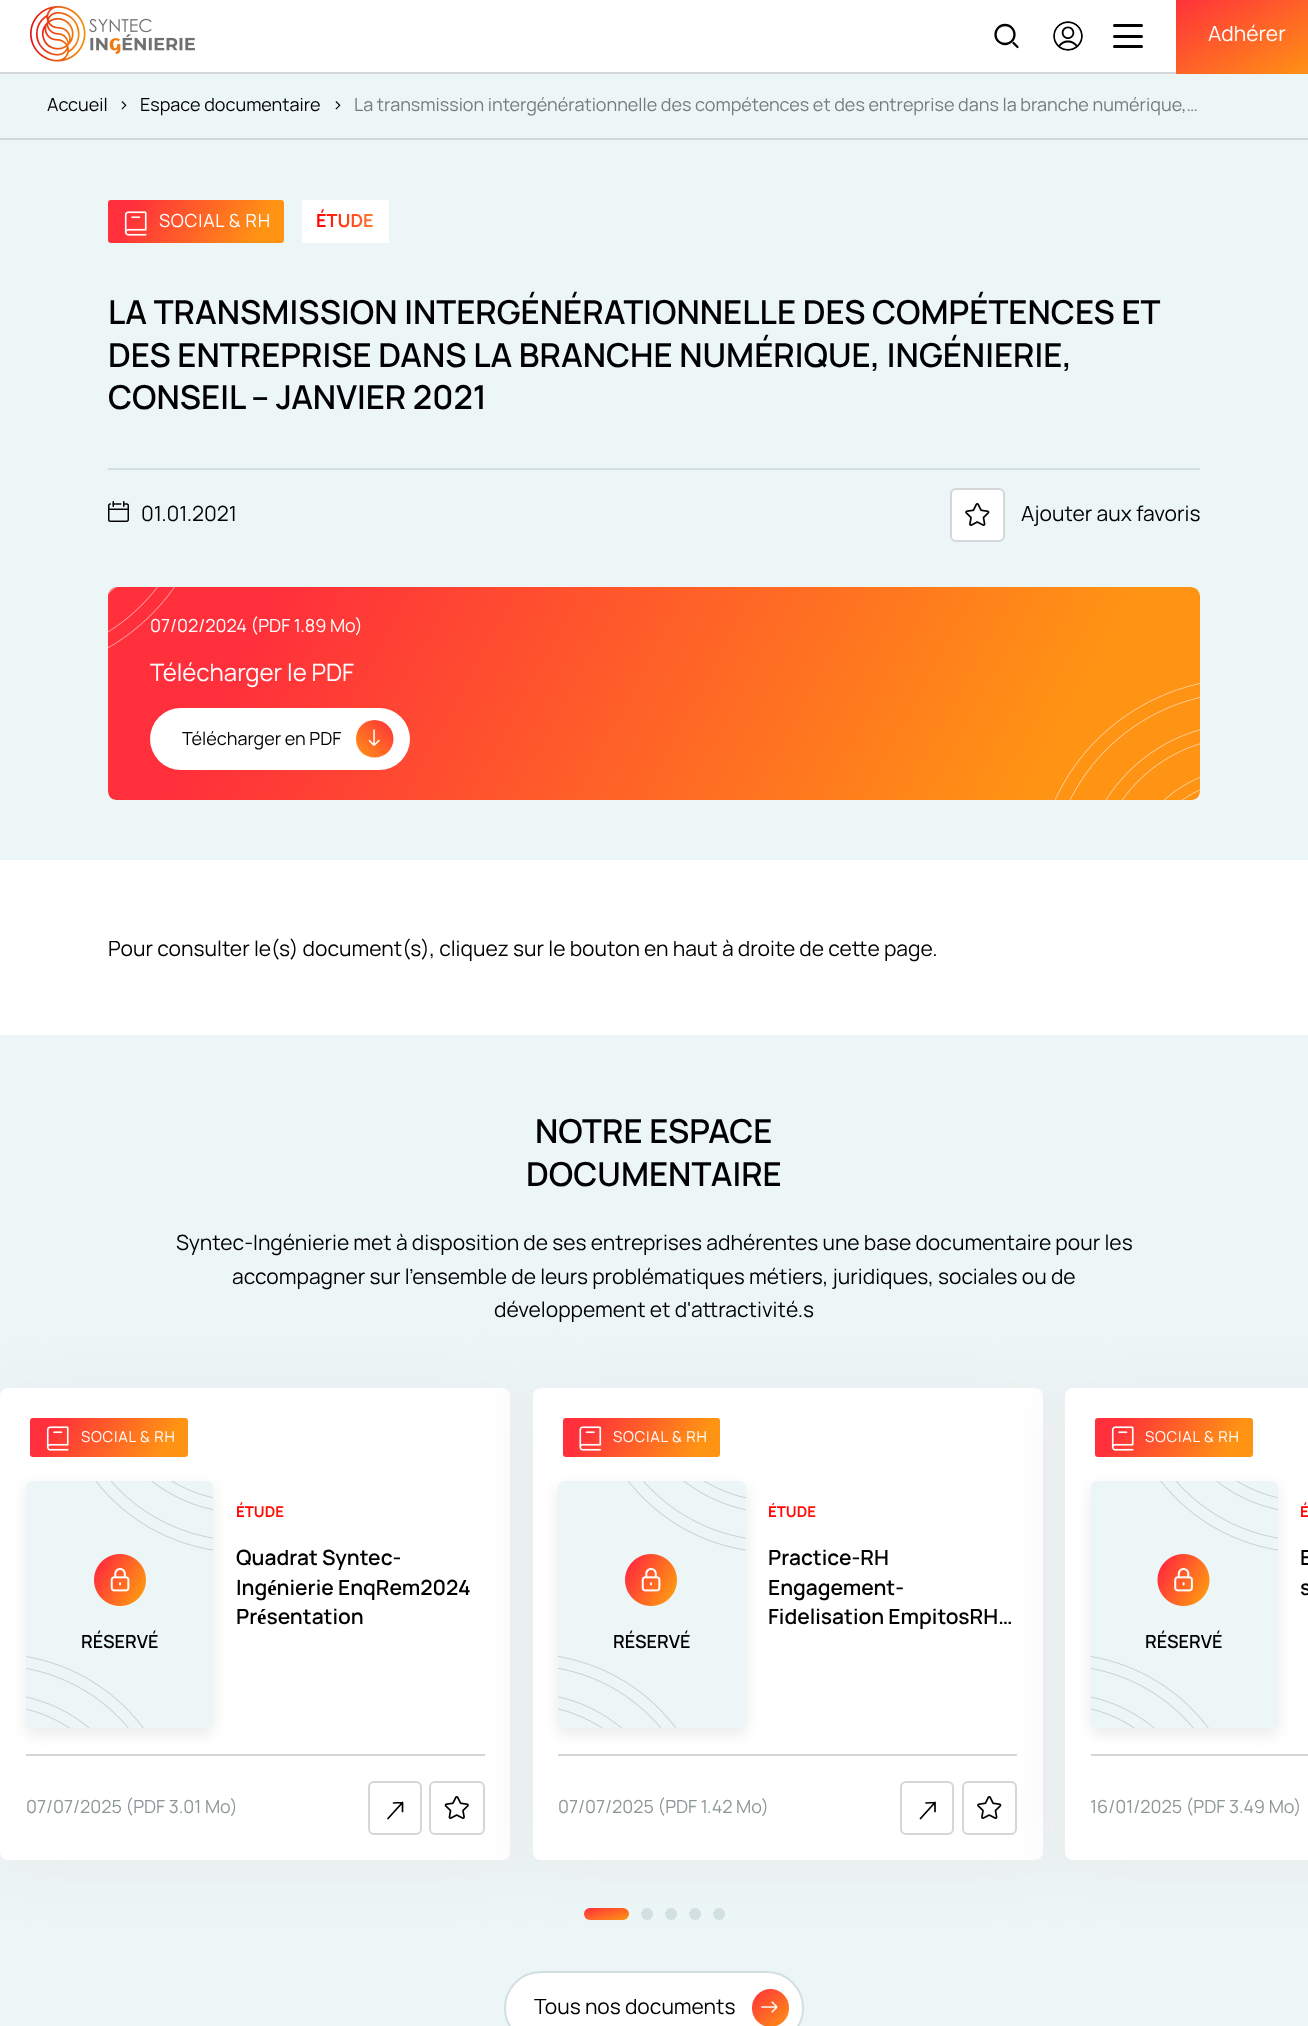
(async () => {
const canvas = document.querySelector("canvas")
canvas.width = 1308
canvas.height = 2026
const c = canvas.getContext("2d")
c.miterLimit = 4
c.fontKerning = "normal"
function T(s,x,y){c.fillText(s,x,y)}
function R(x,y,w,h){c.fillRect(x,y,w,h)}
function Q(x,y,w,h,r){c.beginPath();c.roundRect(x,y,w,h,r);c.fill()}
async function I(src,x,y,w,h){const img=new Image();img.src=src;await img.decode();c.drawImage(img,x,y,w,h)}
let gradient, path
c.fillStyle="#fff"
R(0,0,1308,2026)
c.fillStyle="#d4d7d8"
R(0,72,1176,2)
await I("1.png",30,6,165,56)
c.beginPath()
c.arc(1005,34.5,9.5,0,7)
c.strokeStyle="#000"
c.lineWidth=2.3
c.stroke()
path = new Path2D("M1017.5 47l-4-4")
c.lineCap="round"
c.stroke(path)
c.fillStyle="#000"
Q(1113,24,30,3,1.5)
Q(1113,35,30,3,1.5)
Q(1113,45,30,3,1.5)
await I("2.png",1053,21,30,30)
gradient = c.createLinearGradient(1213,-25,1280,94)
gradient.addColorStop(0,"#ff2f3b")
gradient.addColorStop(1,"#ff9415")
c.fillStyle = gradient
R(1176,0,132,74)
c.font="21px Manrope"
c.fillStyle="#fff"
T("Adhérer",1208,41)
c.fillStyle="#ecf6f7"
R(0,74,1308,64)
c.fillStyle="#d4d7d8"
R(0,138,1308,2)
c.font="18px Manrope"
c.fillStyle="#000"
T("Accueil",47,111)
T(">",118,111)
T("Espace documentaire",140,111)
T(">",332,111)
c.fillStyle="#767b7c"
T("La transmission intergénérationnelle des compétences et des entreprise dans la branche numérique,…",354,111)
c.fillStyle="#ecf6f7"
R(0,140,1308,720)
gradient = c.createLinearGradient(119,180,273,263)
gradient.addColorStop(.14,"#ff2f3b")
gradient.addColorStop(.85,"#ff9314")
c.fillStyle = gradient
Q(108,200,176,43,3)
await I("3.png",124,211,23,25)
c.letterSpacing="0.75px"
c.fillStyle="#fff"
T("SOCIAL & RH",159,227)
R(302,200,87,43)
c.letterSpacing="0px"
c.font="bold 18px Manrope"
gradient = c.createLinearGradient(316,221,373,221)
gradient.addColorStop(0,"#f00")
gradient.addColorStop(1,"#ff7c33")
c.fillStyle = gradient
T("ÉTUDE",316,227)
c.font="600 33px Manrope"
c.fillStyle="#000"
T("LA TRANSMISSION INTERGÉNÉRATIONNELLE DES COMPÉTENCES ET",108,324)
T("DES ENTREPRISE DANS LA BRANCHE NUMÉRIQUE, INGÉNIERIE,",108,367)
T("CONSEIL – JANVIER 2021",108,409)
c.fillStyle="#d2dfe0"
R(108,468,1092,2)
await I("4.png",108,501,21,21)
c.font="21px Manrope"
c.fillStyle="#000"
T("01.01.2021",141,521)
c.fillStyle="#fff"
c.beginPath()
c.roundRect(951,489,53,52,5)
c.fill()
c.strokeStyle="#d4d7d8"
c.lineWidth=2
c.stroke()
await I("5.png",965,503,25,23)
c.fillStyle="#000"
T("Ajouter aux favoris",1021,521)
c.save()
c.beginPath()
c.roundRect(108,587,1092,213,8)
c.clip()
gradient = c.createLinearGradient(186,441,1122,945)
gradient.addColorStop(.14,"#ff2f3b")
gradient.addColorStop(.85,"#ff9314")
c.fillStyle = gradient
c.beginPath()
c.roundRect(108,587,1092,213,[9,9,8,8])
c.fill()
c.restore()
c.font="18px Manrope"
c.fillStyle="#fff"
T("07/02/2024 (PDF 1.89 Mo)",150,632)
await I("6.png",108,587,67,62)
await I("7.png",1054,683,146,117)
c.font="24px Manrope"
T("Télécharger le PDF",150,681)
Q(150,708,260,62,31)
c.font="18px Manrope"
c.fillStyle="#000"
T("Télécharger en PDF",182,745)
gradient = c.createLinearGradient(393,720,356,758)
gradient.addColorStop(0,"#ff2f3b")
gradient.addColorStop(1,"#ff9415")
c.fillStyle = gradient
path = new Path2D("M393.5 739c0 10.5-8.5 18.5-19 18.5c-10.5 0-18.5-8-18.5-18.5c0-10.5 8-19 18.5-19c10.5 0 19 8.5 19 19z")
c.fill(path)
await I("8.png",368,729,12,17)
c.font="21px Manrope"
c.fillStyle="#000"
T("Pour consulter le(s) document(s), cliquez sur le bouton en haut à droite de cette page.",108,956)
c.fillStyle="#ecf6f7"
R(0,1035,1308,991)
c.font="600 33px Manrope"
c.fillStyle="#000"
T("NOTRE ESPACE",535,1143)
T("DOCUMENTAIRE",526,1186)
c.font="21px Manrope"
T("Syntec-Ingénierie met à disposition de ses entreprises adhérentes une base documentaire pour les",176,1250)
T("accompagner sur l'ensemble de leurs problématiques métiers, juridiques, sociales ou de",232,1284)
c.fillStyle="#eaeaea"
c.filter="blur(25.5px)"
c.beginPath()
c.roundRect(0,1394,510,472,8)
c.fill()
c.filter="none"
c.fillStyle="#fff"
Q(0,1388,510,472,8)
c.fillStyle="#d4d7d8"
R(26,1754,459,2)
c.beginPath()
c.roundRect(430,1782,54,52,5)
c.stroke()
await I("13.png",444,1796,25,23)
c.fillStyle="#eaeaea"
c.filter="blur(25.5px)"
c.beginPath()
c.roundRect(533,1394,510,472,8)
c.fill()
c.filter="none"
c.fillStyle="#000"
T("développement et d'attractivité.s",494,1317)
gradient = c.createLinearGradient(40,1400,178,1474)
gradient.addColorStop(.14,"#ff2f3b")
gradient.addColorStop(.85,"#ff9314")
c.fillStyle = gradient
Q(30,1418,158,39,3)
await I("9.png",46,1426,23,25)
c.letterSpacing="0.75px"
c.font="15px Manrope"
c.fillStyle="#fff"
T("SOCIAL & RH",81,1442)
c.letterSpacing="0px"
c.font="bold 15px Manrope"
gradient = c.createLinearGradient(236,1511,484,1511)
gradient.addColorStop(0,"#f00")
gradient.addColorStop(1,"#ff7c33")
c.fillStyle = gradient
T("ÉTUDE",236,1517)
c.font="600 21px Manrope"
c.fillStyle="#000"
T("Quadrat Syntec-",236,1565)
T("Ingénierie EnqRem2024",236,1595)
T("Présentation",236,1624)
c.fillStyle="#eaeaea"
c.filter="blur(7.5px)"
c.beginPath()
c.roundRect(26,1487,187,247,6)
c.fill()
c.filter="none"
c.fillStyle="#ecf6f7"
Q(26,1481,187,247,6)
await I("10.png",95,1481,118,70)
await I("11.png",26,1656,118,72)
await I("12.png",94,1554,52,52)
c.font="600 18px Manrope"
c.fillStyle="#000"
T("RÉSERVÉ",81,1648)
c.font="18px Manrope"
c.fillStyle="#8e9798"
T("07/07/2025 (PDF 3.01 Mo)",26,1813)
c.beginPath()
c.roundRect(369,1782,52,52,5)
c.stroke()
path = new Path2D("M388 1818.5l14.5-16m0 0l-9 .5m9-.5v9")
c.strokeStyle="#000"
c.lineWidth=1.7
c.lineJoin="round"
c.stroke(path)
c.fillStyle="#fff"
Q(533,1388,510,472,8)
c.fillStyle="#d4d7d8"
R(558,1754,459,2)
gradient = c.createLinearGradient(572,1400,710,1474)
gradient.addColorStop(.14,"#ff2f3b")
gradient.addColorStop(.85,"#ff9314")
c.fillStyle = gradient
Q(563,1418,157,39,3)
await I("14.png",579,1426,23,25)
c.letterSpacing="0.75px"
c.font="15px Manrope"
c.fillStyle="#fff"
T("SOCIAL & RH",613,1442)
c.save()
c.beginPath()
c.rect(768,1503,249,18)
c.clip()
c.letterSpacing="0px"
c.font="bold 15px Manrope"
gradient = c.createLinearGradient(768,1511,1016,1511)
gradient.addColorStop(0,"#f00")
gradient.addColorStop(1,"#ff7c33")
c.fillStyle = gradient
T("ÉTUDE",768,1517)
c.restore()
c.letterSpacing="0px"
c.font="600 21px Manrope"
c.fillStyle="#000"
T("Practice-RH",768,1565)
T("Engagement-",768,1595)
T("Fidelisation EmpitosRH…",768,1624)
c.fillStyle="#eaeaea"
c.filter="blur(7.5px)"
c.beginPath()
c.roundRect(558,1487,188,247,6)
c.fill()
c.filter="none"
c.fillStyle="#ecf6f7"
Q(558,1481,188,247,6)
await I("15.png",628,1481,118,70)
await I("16.png",558,1656,118,72)
await I("12.png",625,1554,52,52)
c.font="600 18px Manrope"
c.fillStyle="#000"
T("RÉSERVÉ",613,1648)
c.font="18px Manrope"
c.fillStyle="#8e9798"
T("07/07/2025 (PDF 1.42 Mo)",558,1813)
c.beginPath()
c.roundRect(901,1782,52,52,5)
c.strokeStyle="#d4d7d8"
c.lineWidth=2
c.lineJoin="miter"
c.stroke()
path = new Path2D("M920.5 1818.5l14.5-16m0 0l-9 .5m9-.5v9")
c.strokeStyle="#000"
c.lineWidth=1.7
c.lineJoin="round"
c.stroke(path)
c.beginPath()
c.roundRect(963,1782,53,52,5)
c.strokeStyle="#d4d7d8"
c.lineWidth=2
c.lineJoin="miter"
c.stroke()
await I("5.png",977,1796,25,23)
c.fillStyle="#eaeaea"
c.filter="blur(25.5px)"
c.beginPath()
c.roundRect(1065,1394,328,472,8)
c.fill()
c.filter="none"
c.fillStyle="#fff"
c.beginPath()
c.roundRect(1065,1388,243,472,[8,0,0,8])
c.fill()
c.fillStyle="#d4d7d8"
R(1091,1754,217,2)
gradient = c.createLinearGradient(1105,1400,1243,1474)
gradient.addColorStop(.14,"#ff2f3b")
gradient.addColorStop(.85,"#ff9314")
c.fillStyle = gradient
Q(1095,1418,158,39,3)
await I("9.png",1111,1426,23,25)
c.letterSpacing="0.75px"
c.font="15px Manrope"
c.fillStyle="#fff"
T("SOCIAL & RH",1145,1442)
c.letterSpacing="0px"
c.font="bold 15px Manrope"
gradient = c.createLinearGradient(1300,1511,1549,1511)
gradient.addColorStop(0,"#f00")
gradient.addColorStop(1,"#ff7c33")
c.fillStyle = gradient
T("É",1300,1517)
c.font="600 21px Manrope"
c.fillStyle="#000"
T("E",1300,1565)
T("s",1300,1595)
c.fillStyle="#eaeaea"
c.filter="blur(7.5px)"
c.beginPath()
c.roundRect(1091,1487,187,247,6)
c.fill()
c.filter="none"
c.fillStyle="#ecf6f7"
Q(1091,1481,187,247,6)
await I("10.png",1160,1481,118,70)
await I("11.png",1091,1656,118,72)
await I("17.png",1157,1554,53,52)
c.font="600 18px Manrope"
c.fillStyle="#000"
T("RÉSERVÉ",1145,1648)
c.font="18px Manrope"
c.fillStyle="#8e9798"
T("16/01/2025 (PDF 3.49 Mo)",1090,1813)
gradient = c.createLinearGradient(603,1903,609,1925)
gradient.addColorStop(0,"#ff2f3b")
gradient.addColorStop(1,"#ff9415")
c.fillStyle = gradient
Q(584,1908,45,12,6)
c.fillStyle="#d2dfe0"
c.beginPath()
c.arc(647,1914,6,0,7)
c.fill()
c.beginPath()
c.arc(671,1914,6,0,7)
c.fill()
c.beginPath()
c.arc(695,1914,6,0,7)
c.fill()
c.beginPath()
c.arc(719,1914,6,0,7)
c.fill()
c.fillStyle="#fff"
c.beginPath()
c.roundRect(505,1972,298,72,36)
c.fill()
c.strokeStyle="#d2dfe0"
c.stroke()
c.font="21px Manrope"
c.fillStyle="#000"
T("Tous nos documents",534,2014)
gradient = c.createLinearGradient(752,1989,789,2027)
gradient.addColorStop(0,"#ff2f3b")
gradient.addColorStop(1,"#ff9415")
c.fillStyle = gradient
Q(752,1989,37,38,18.5)
await I("18.png",761,2001,17,12)
})()
